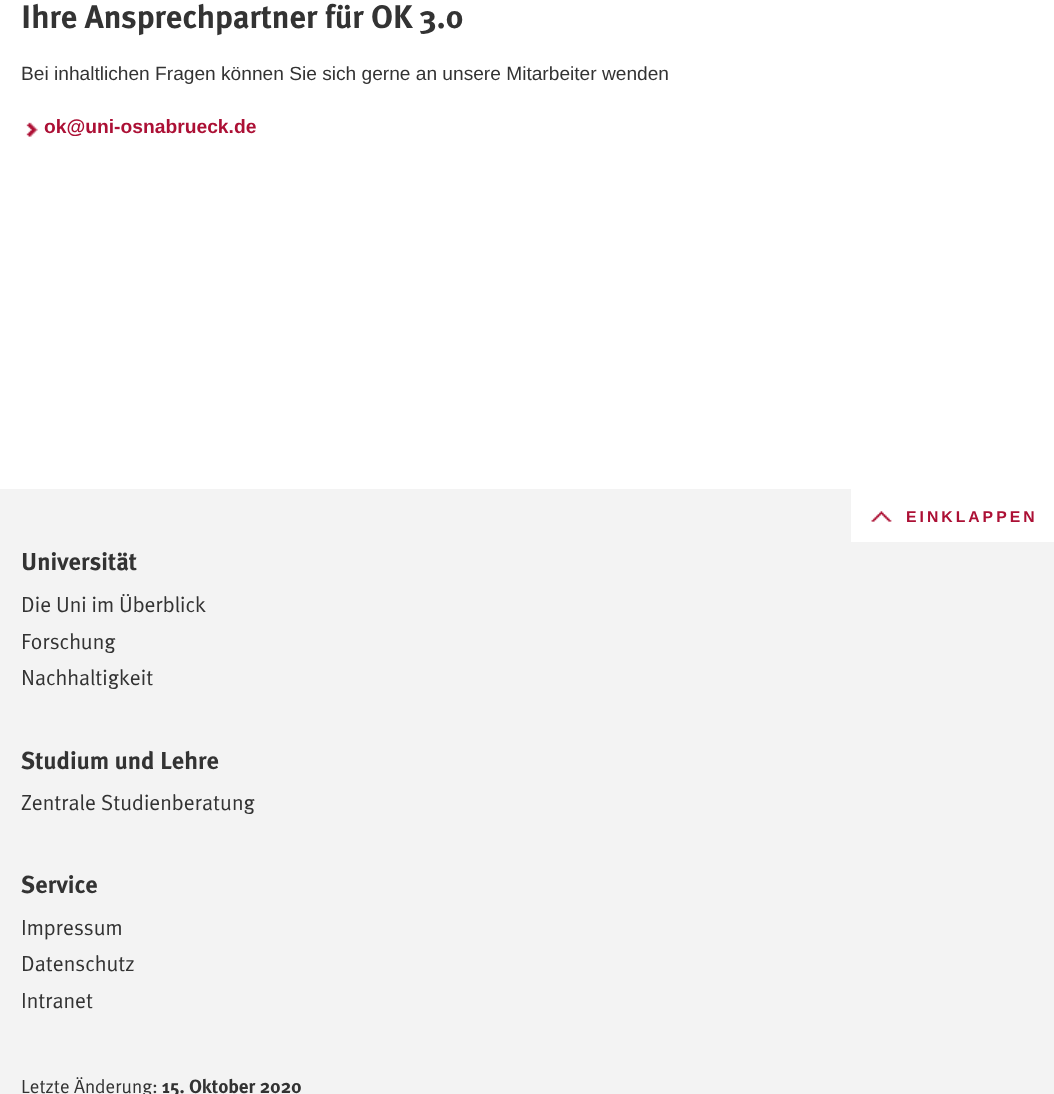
(async () => {
const canvas = document.querySelector("canvas")
canvas.width = 1054
canvas.height = 1094
const c = canvas.getContext("2d")
c.miterLimit = 4
c.fontKerning = "normal"
function T(s,x,y){c.fillText(s,x,y)}
function R(x,y,w,h){c.fillRect(x,y,w,h)}
async function I(src,x,y,w,h){const img=new Image();img.src=src;await img.decode();c.drawImage(img,x,y,w,h)}
c.fillStyle="#fff"
R(0,0,1054,1094)
c.font="bold 32.6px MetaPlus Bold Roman"
c.fillStyle="#333"
T("Ihre Ansprechpartner für OK 3.0",21,28)
c.font="19.15px Liberation Sans"
T("Bei inhaltlichen Fragen können Sie sich gerne an unsere Mitarbeiter wenden",21,80)
await I("1.png",26,122,12,15)
c.font="bold 19.25px Liberation Sans"
c.fillStyle="#ac1035"
T("ok@uni-osnabrueck.de",44,133)
c.fillStyle="#f3f3f3"
R(0,501,1054,593)
c.fillStyle="#fff"
R(851,501,203,41)
await I("2.png",871,511,21,11)
c.letterSpacing="3px"
c.font="bold 15.75px Liberation Sans"
c.fillStyle="#ac1035"
T("EINKLAPPEN",906,522)
c.fillStyle="#f3f3f3"
R(0,489,851,12)
c.letterSpacing="0px"
c.font="bold 24.5px MetaPlus Bold Roman"
c.fillStyle="#333"
T("Universität",21,570)
c.font="21.75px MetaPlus"
T("Die Uni im Überblick",21,612)
T("Forschung",21,649)
T("Nachhaltigkeit",21,685)
c.font="bold 24.5px MetaPlus Bold Roman"
T("Studium und Lehre",21,769)
c.font="21.75px MetaPlus"
T("Zentrale Studienberatung",21,810)
c.font="bold 24.5px MetaPlus Bold Roman"
T("Service",21,893)
c.font="21.75px MetaPlus"
T("Impressum",21,935)
T("Datenschutz",21,971)
T("Intranet",21,1008)
c.font="19.15px MetaPlus"
T("Letzte Änderung:",21,1093)
c.font="bold 19.25px MetaPlus Bold Roman"
T("15. Oktober 2020",162,1093)
})()
